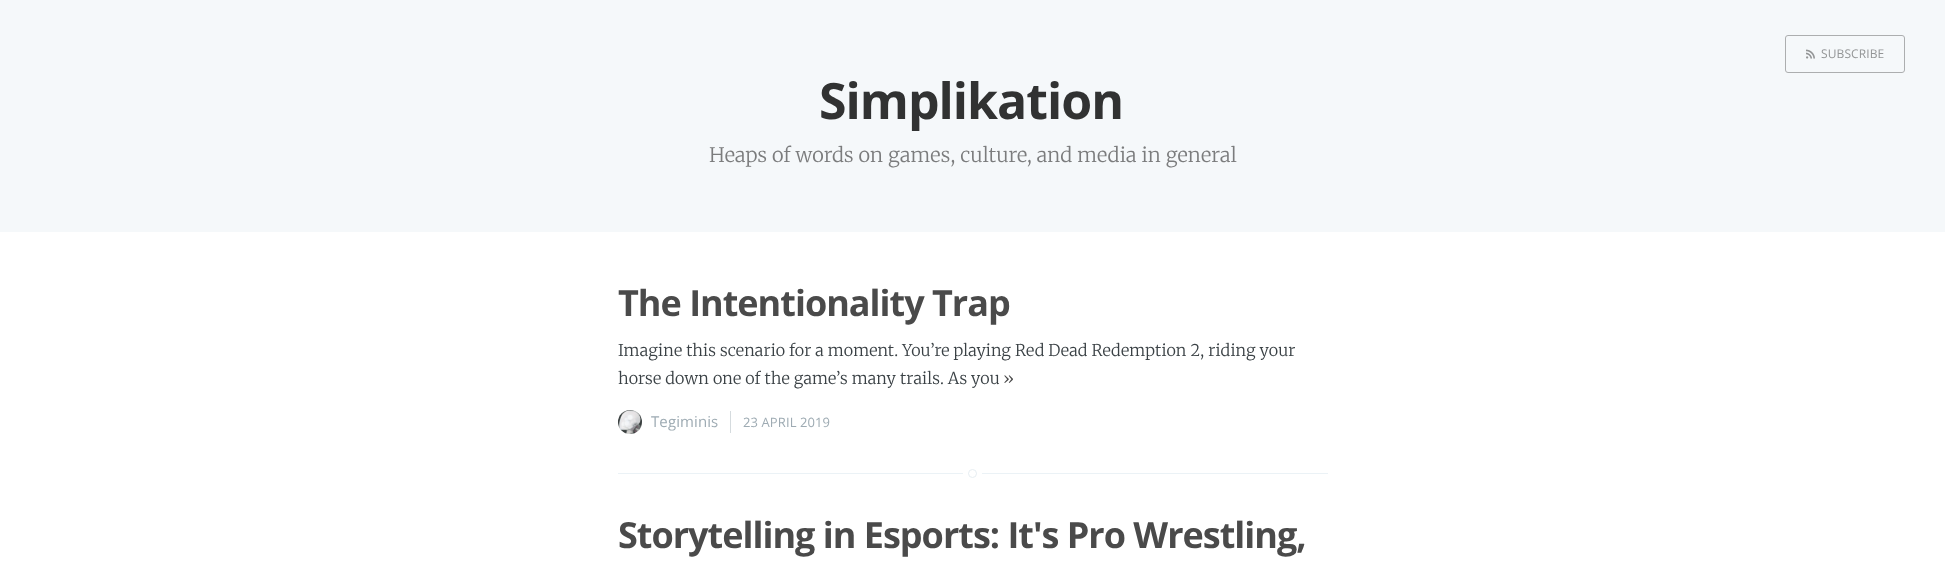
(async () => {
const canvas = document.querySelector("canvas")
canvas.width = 1945
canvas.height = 579
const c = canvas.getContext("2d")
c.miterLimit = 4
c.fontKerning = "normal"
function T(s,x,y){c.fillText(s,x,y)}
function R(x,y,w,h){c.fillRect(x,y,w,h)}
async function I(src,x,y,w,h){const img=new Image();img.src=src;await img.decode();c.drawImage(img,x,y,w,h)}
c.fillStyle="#fff"
R(0,0,1945,579)
c.fillStyle="#f5f8fa"
R(0,0,1945,232)
c.beginPath()
c.roundRect(1785.5,35.5,119,37,2.5)
c.strokeStyle="#acaeaf"
c.stroke()
await I("1.png",1806,49,9,10)
c.letterSpacing="0.1px"
c.font="12px Open Sans"
c.fillStyle="#939596"
T("SUBSCRIBE",1821,58)
c.letterSpacing="-1px"
c.font="bold 50px Open Sans"
c.fillStyle="#313232"
T("Simplikation",819,119)
c.letterSpacing="0.1px"
c.font="300 20px Merriweather"
c.fillStyle="#7b7c7d"
T("Heaps of words on games, culture, and media in general",709,162)
c.fillStyle="#ebf2f6"
R(618,473,710,1)
c.letterSpacing="-1px"
c.font="bold 36px Open Sans"
c.fillStyle="#4a4a4a"
T("The Intentionality Trap",618,316)
c.letterSpacing="0.1px"
c.font="300 16.2px Merriweather"
c.fillStyle="#3a4145"
T("Imagine this scenario for a moment. You’re playing Red Dead Redemption 2, riding your",618,356)
T("horse down one of the game’s many trails. As you",618,384)
c.fillStyle="#4a4a4a"
T("»",1003,384)
await I("2.png",618,410,24,24)
c.font="15px Open Sans"
c.fillStyle="#9eabb3"
T("Tegiminis",651,427)
c.fillStyle="#d5dbde"
R(730,411,1,22)
c.font="13px Open Sans"
c.fillStyle="#9eabb3"
T("23 APRIL 2019",743,427)
c.beginPath()
c.arc(972.5,473.5,7,0,7)
c.strokeStyle="#fff"
c.lineWidth=5
c.stroke()
c.fillStyle="#fff"
c.beginPath()
c.arc(972.5,473.5,4,0,7)
c.fill()
c.strokeStyle="#e7eef2"
c.lineWidth=1
c.stroke()
c.letterSpacing="-1px"
c.font="bold 36px Open Sans"
c.fillStyle="#4a4a4a"
T("Storytelling in Esports: It's Pro Wrestling,",618,548)
})()
